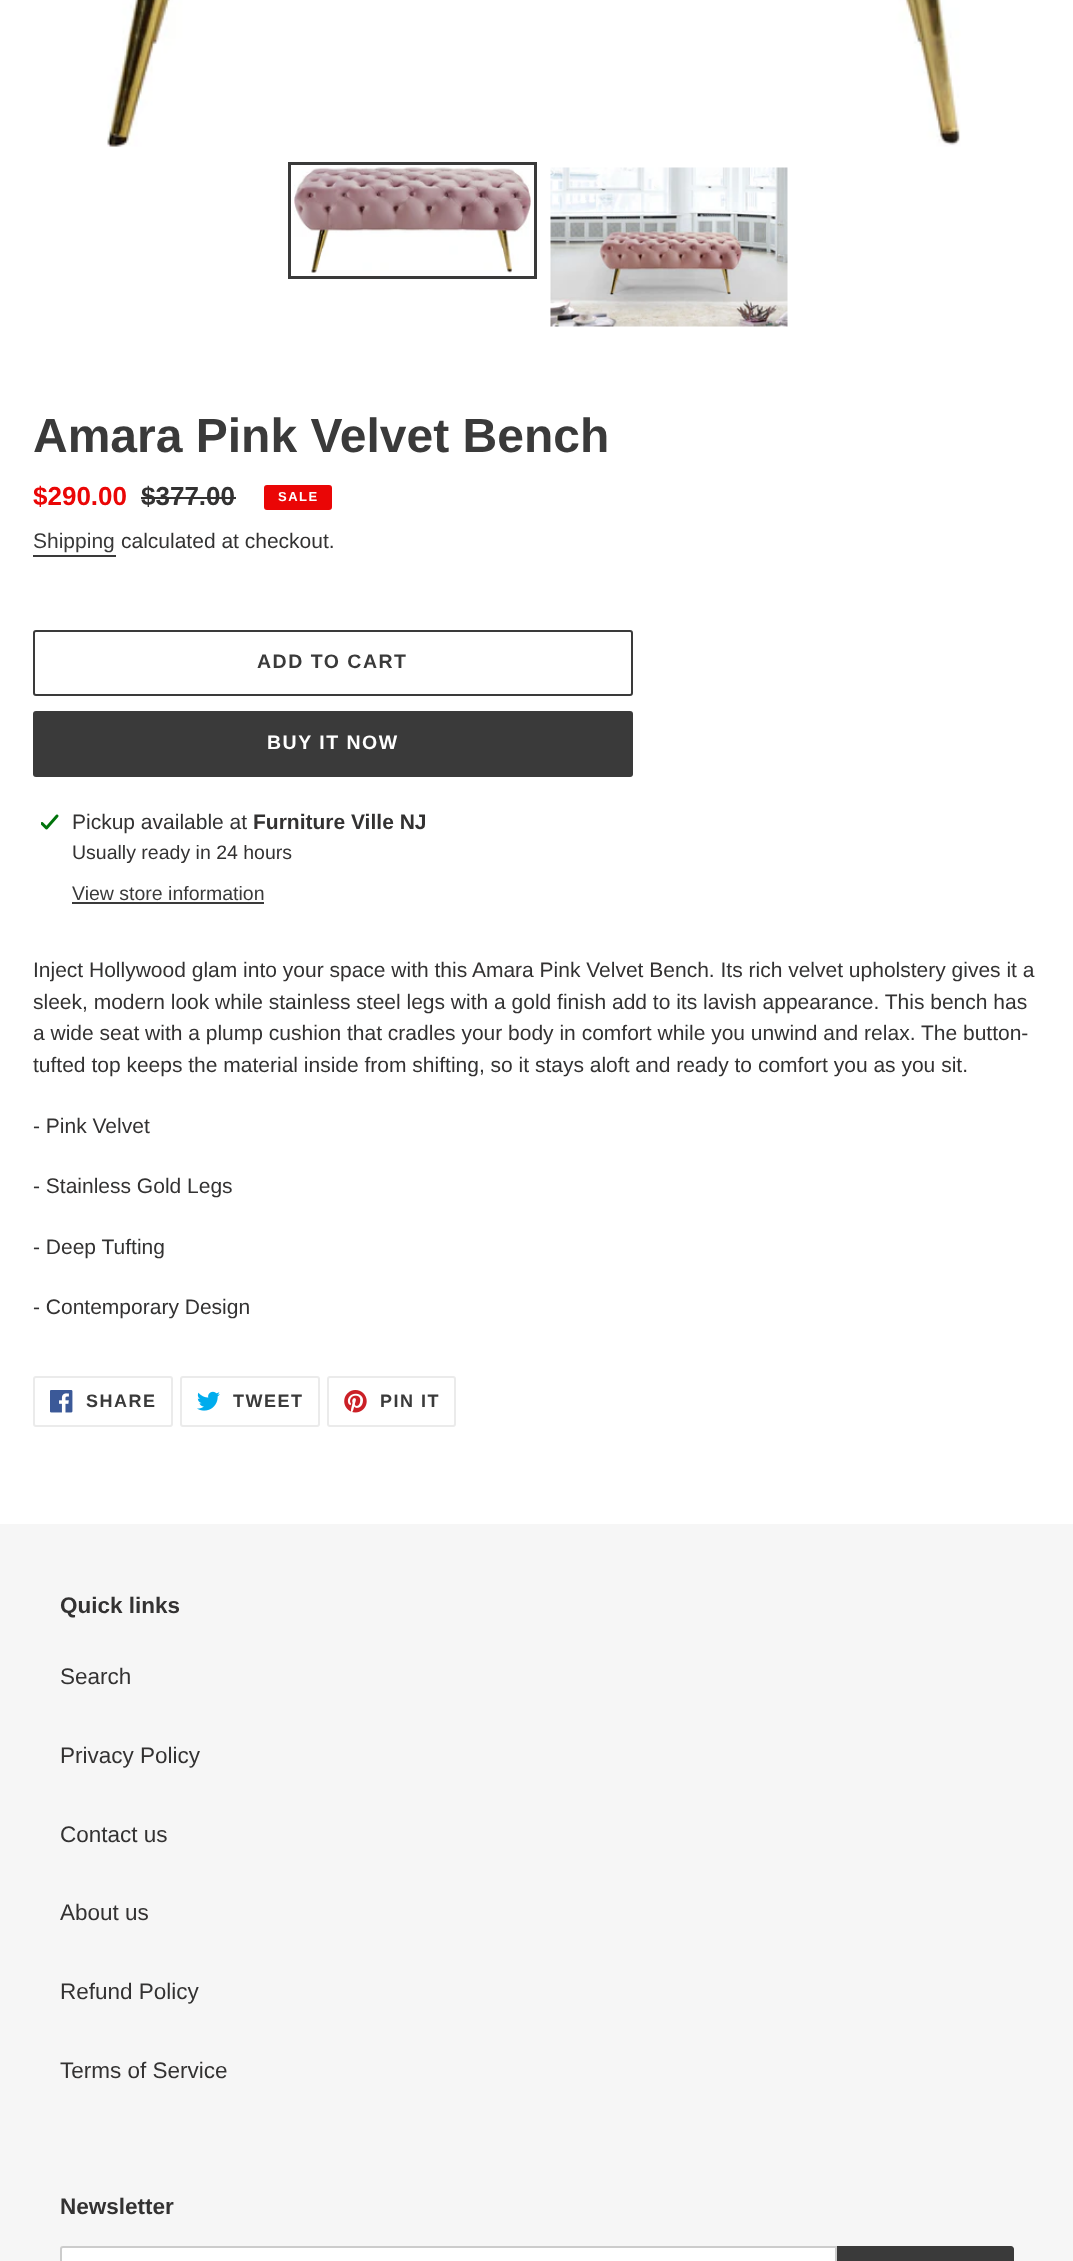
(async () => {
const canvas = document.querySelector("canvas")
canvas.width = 1073
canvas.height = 2261
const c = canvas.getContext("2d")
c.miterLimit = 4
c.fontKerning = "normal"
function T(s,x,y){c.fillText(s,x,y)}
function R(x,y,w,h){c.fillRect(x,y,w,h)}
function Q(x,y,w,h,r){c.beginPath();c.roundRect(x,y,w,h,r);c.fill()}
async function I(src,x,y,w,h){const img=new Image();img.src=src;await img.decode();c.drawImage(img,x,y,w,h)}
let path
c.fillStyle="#fff"
R(0,0,1073,2261)
await I("1.png",107,0,854,147)
c.strokeStyle="#3a3a3a"
c.lineWidth=3
c.strokeRect(289.5,163.5,246,114)
await I("2.png",294,167,237,106)
await I("3.png",550,167,238,160)
c.font="bold 48px Liberation Sans"
c.fillStyle="#3a3a3a"
T("Amara Pink Velvet Bench",33,452)
c.font="bold 26px Liberation Sans"
c.fillStyle="#ea0606"
T("$290.00",33,505)
c.fillStyle="#333232"
T("$377.00",141,505)
R(141,497,95,2)
c.fillStyle="#ea0606"
c.beginPath()
c.roundRect(265,486,66,23,2)
c.fill()
c.strokeStyle="#ea0606"
c.lineWidth=2
c.stroke()
c.letterSpacing="1.5px"
c.font="bold 13px Liberation Sans"
c.fillStyle="#fff"
T("SALE",278,501)
c.letterSpacing="0px"
c.font="21px Liberation Sans"
c.fillStyle="#3a3a3a"
T("Shipping",33,548)
R(33,555,83,2)
c.fillStyle="#333232"
T("calculated at checkout.",121,548)
c.beginPath()
c.roundRect(34,631,598,64,2)
c.strokeStyle="#3a3a3a"
c.stroke()
c.letterSpacing="1.5px"
c.font="bold 19.5px Liberation Sans"
c.fillStyle="#3a3a3a"
T("ADD TO CART",257,668)
Q(33,711,600,66,3)
c.fillStyle="#fff"
T("BUY IT NOW",267,749)
await I("4.png",41,814,18,16)
c.letterSpacing="0px"
c.font="21px Liberation Sans"
c.fillStyle="#333232"
T("Pickup available at",72,829)
c.font="bold 21px Liberation Sans"
T("Furniture Ville NJ",253,829)
c.font="19.5px Liberation Sans"
T("Usually ready in 24 hours",72,859)
c.fillStyle="#3a3a3a"
T("View store information",72,900)
R(72,902,192,2)
c.font="21px Liberation Sans"
c.fillStyle="#333232"
T("Inject Hollywood glam into your space with this Amara Pink Velvet Bench. Its rich velvet upholstery gives it a",33,977)
T("sleek, modern look while stainless steel legs with a gold finish add to its lavish appearance. This bench has",33,1009)
T("a wide seat with a plump cushion that cradles your body in comfort while you unwind and relax. The button-",33,1040)
T("tufted top keeps the material inside from shifting, so it stays aloft and ready to comfort you as you sit.",33,1072)
T("- Pink Velvet",33,1133)
T("- Stainless Gold Legs",33,1193)
T("- Deep Tufting",33,1254)
T("- Contemporary Design",33,1314)
c.beginPath()
c.roundRect(34,1377,138,49,2)
c.strokeStyle="#ebebeb"
c.stroke()
await I("5.png",50,1390,23,23)
c.letterSpacing="1.5px"
c.font="bold 18px Liberation Sans"
c.fillStyle="#3a3a3a"
T("SHARE",86,1407)
c.beginPath()
c.roundRect(181,1377,138,49,2)
c.stroke()
await I("6.png",197,1391,23,20)
T("TWEET",233,1407)
c.beginPath()
c.roundRect(328,1377,127,49,2)
c.stroke()
await I("7.png",344,1390,23,23)
T("PIN IT",380,1407)
c.fillStyle="#f6f6f6"
R(0,1524,1073,737)
c.letterSpacing="0px"
c.font="bold 22.5px Liberation Sans"
c.fillStyle="#333232"
T("Quick links",60,1613)
c.font="22.5px Liberation Sans"
T("Search",60,1684)
T("Privacy Policy",60,1763)
T("Contact us",60,1842)
T("About us",60,1920)
T("Refund Policy",60,1999)
T("Terms of Service",60,2078)
c.font="bold 22.5px Liberation Sans"
T("Newsletter",60,2214)
c.fillStyle="#fff"
path = new Path2D("M63 2247h773v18h-773c-1 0-2-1-2-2v-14c0-1 1-2 2-2z")
c.fill(path)
c.strokeStyle="#ccc"
c.stroke(path)
c.fillStyle="#3a3a3a"
path = new Path2D("M837 2246h174c1.5 0 3 1.5 3 3v12c0 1.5-1.5 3-3 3h-174z")
c.fill(path)
})()
